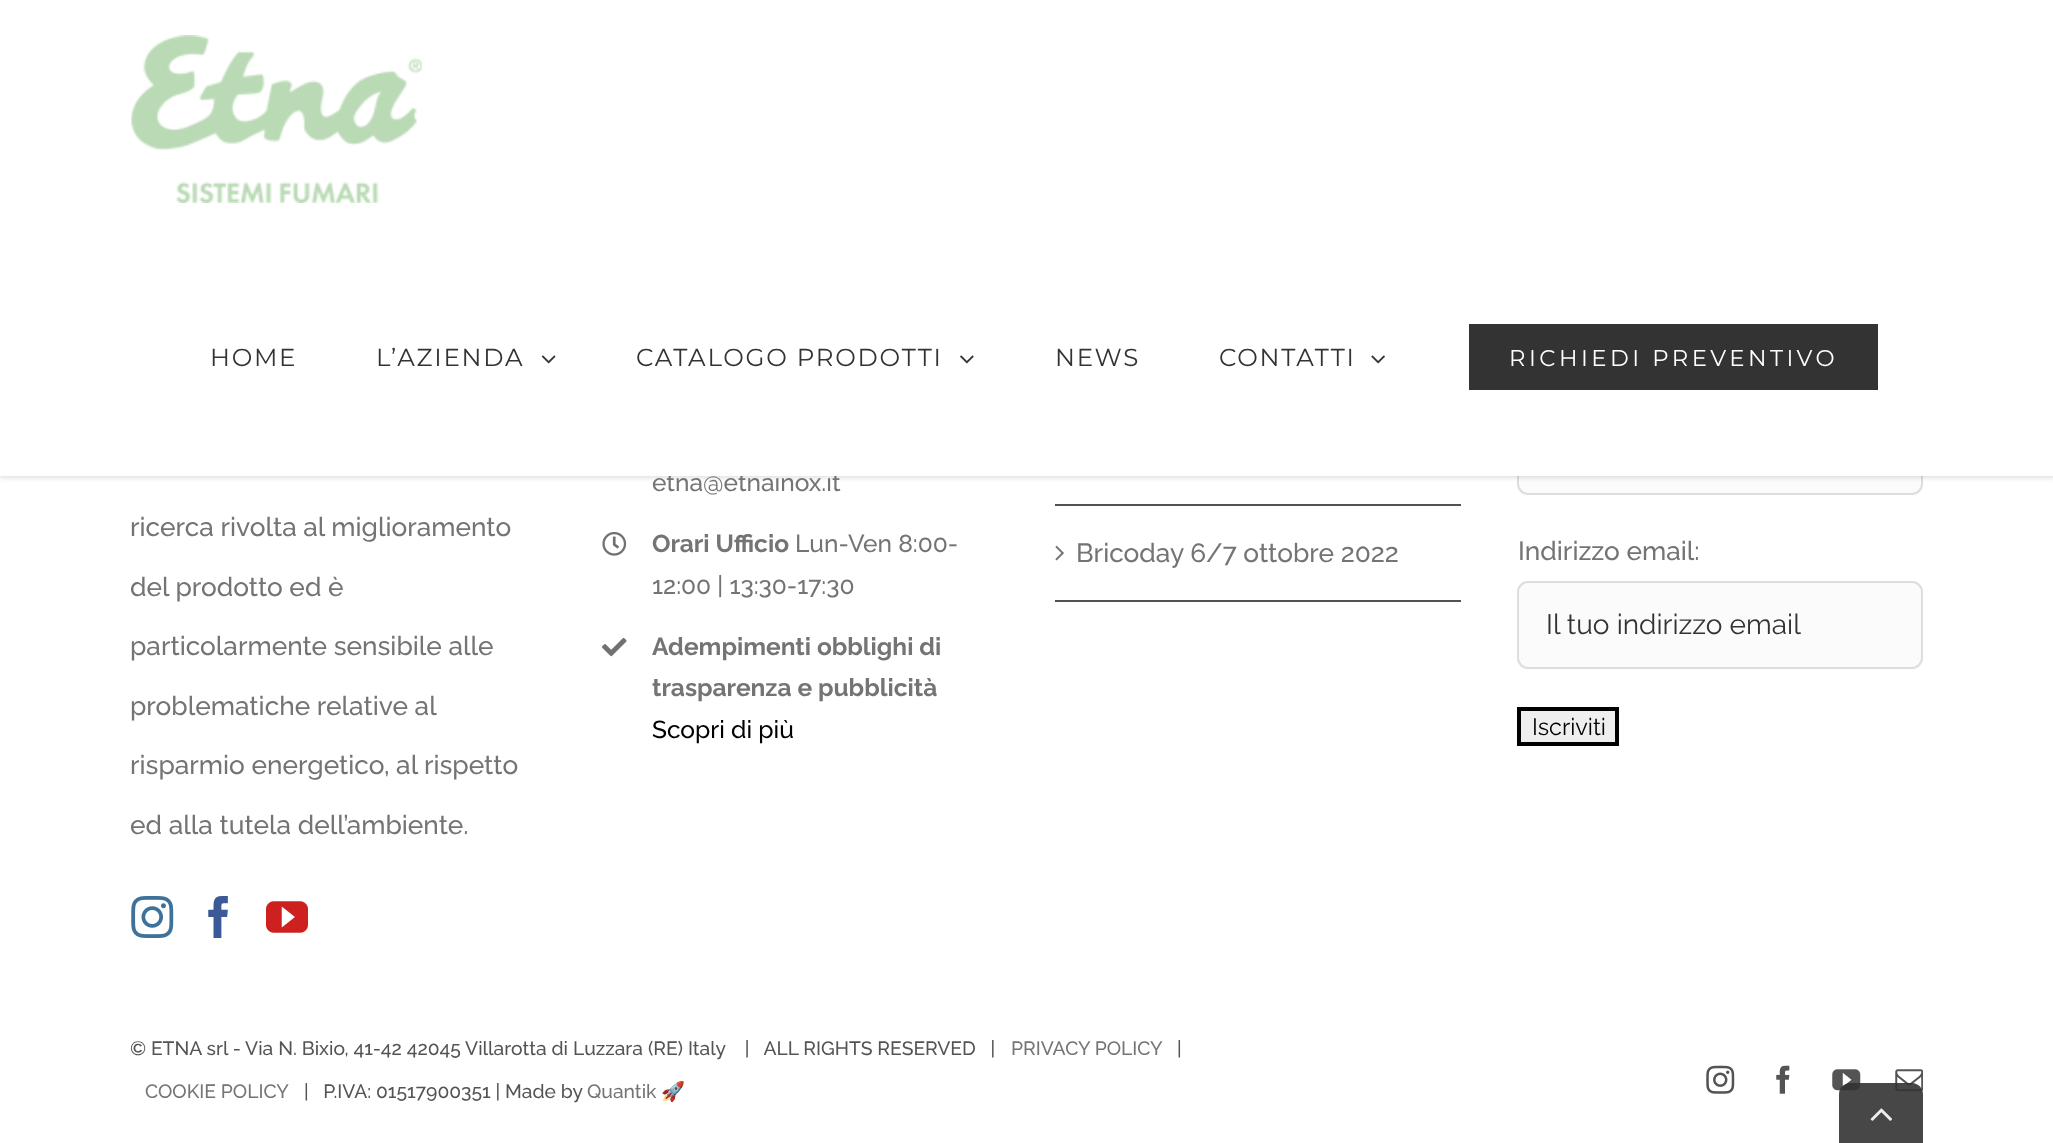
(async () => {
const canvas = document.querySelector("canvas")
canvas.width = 2053
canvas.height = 1143
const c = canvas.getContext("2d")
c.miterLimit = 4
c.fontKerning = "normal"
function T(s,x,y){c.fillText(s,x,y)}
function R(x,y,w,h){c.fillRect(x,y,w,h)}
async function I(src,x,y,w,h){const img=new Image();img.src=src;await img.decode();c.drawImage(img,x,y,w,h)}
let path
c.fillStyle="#fff"
R(0,0,2053,1143)
c.fillStyle="#fbfbfb"
c.beginPath()
c.roundRect(1518,409,404,85,10)
c.fill()
c.strokeStyle="#ddd"
c.lineWidth=2
c.stroke()
c.fillStyle="#0000001f"
c.filter="blur(2.5px)"
c.beginPath()
c.rect(0,2,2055,476)
c.fill()
c.filter="none"
c.font="500 24.5px Raleway"
c.fillStyle="#747474"
T("etna@etnainox.it",652,491)
c.fillStyle="#fff"
R(0,0,2053,476)
await I("1.png",131,35,291,168)
c.letterSpacing="1.75px"
c.font="24.5px Montserrat"
c.fillStyle="#333"
T("HOME",210,366)
T("L’AZIENDA",376,366)
await I("2.png",541,355,15,9)
T("CATALOGO PRODOTTI",636,366)
await I("3.png",960,355,14,9)
T("NEWS",1055,366)
T("CONTATTI",1219,366)
await I("4.png",1371,355,14,9)
R(1469,324,409,66)
c.letterSpacing="3.5px"
c.font="22.75px Montserrat"
c.fillStyle="#fff"
T("RICHIEDI PREVENTIVO",1509,366)
c.letterSpacing="0px"
c.font="500 26.25px Raleway"
c.fillStyle="#747474"
T("ricerca rivolta al miglioramento",130,536)
T("del prodotto ed è",130,596)
T("particolarmente sensibile alle",130,655)
T("problematiche relative al",130,715)
T("risparmio energetico, al rispetto",130,774)
T("ed alla tutela dell’ambiente.",130,834)
await I("5.png",131,896,43,42)
await I("6.png",208,896,20,42)
await I("7.png",266,901,42,32)
await I("8.png",602,531,25,25)
c.font="bold 24.5px Raleway"
T("Orari Ufficio",652,552)
c.font="500 24.5px Raleway"
T("Lun-Ven 8:00-",795,552)
T("12:00 | 13:30-17:30",652,594)
await I("9.png",602,637,25,20)
c.font="bold 24.5px Raleway"
T("Adempimenti obblighi di",652,655)
T("trasparenza e pubblicità",652,696)
c.font="500 24.5px Raleway"
c.fillStyle="#000"
T("Scopri di più",652,738)
c.fillStyle="#505152"
R(1055,504,406,2)
R(1055,600,406,2)
await I("10.png",1055,545,9,16)
c.font="500 26.25px Raleway"
c.fillStyle="#747474"
T("Bricoday 6/7 ottobre 2022",1076,562)
T("Indirizzo email:",1518,560)
c.fillStyle="#fbfbfb"
c.beginPath()
c.roundRect(1518,582,404,86,10)
c.fill()
c.stroke()
c.font="28px Raleway"
c.fillStyle="#333"
T("Il tuo indirizzo email",1546,634)
c.fillStyle="#efefef"
c.beginPath()
c.rect(1519,709,98,35)
c.fill()
c.strokeStyle="#000"
c.lineWidth=4
c.stroke()
c.font="23.5px Raleway"
c.fillStyle="#000"
T("Iscriviti",1532,735)
c.font="500 19.25px Raleway"
c.fillStyle="#545454"
T("© ETNA srl - Via N. Bixio, 41-42 42045 Villarotta di Luzzara (RE) Italy    |   ALL RIGHTS RESERVED   |",130,1055)
c.fillStyle="#747474"
T("PRIVACY POLICY",1011,1055)
c.fillStyle="#545454"
T("|",1177,1055)
c.fillStyle="#747474"
T("COOKIE POLICY",145,1098)
c.fillStyle="#545454"
T("|   P.IVA: 01517900351 | Made by",304,1098)
c.fillStyle="#747474"
T("Quantik",587,1098)
c.font="19.25px Noto Color Emoji"
c.fillStyle="#545454"
T("🚀",661,1098)
await I("11.png",1706,1065,29,29)
await I("12.png",1776,1065,14,29)
await I("13.png",1832,1069,29,22)
await I("14.png",1895,1069,28,23)
c.fillStyle="#333333e6"
path = new Path2D("M1850 1083h62c6 0 11 5 11 11v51h-84v-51c0-6 5-11 11-11z")
c.fill(path)
await I("15.png",1870,1108,22,13)
})()
